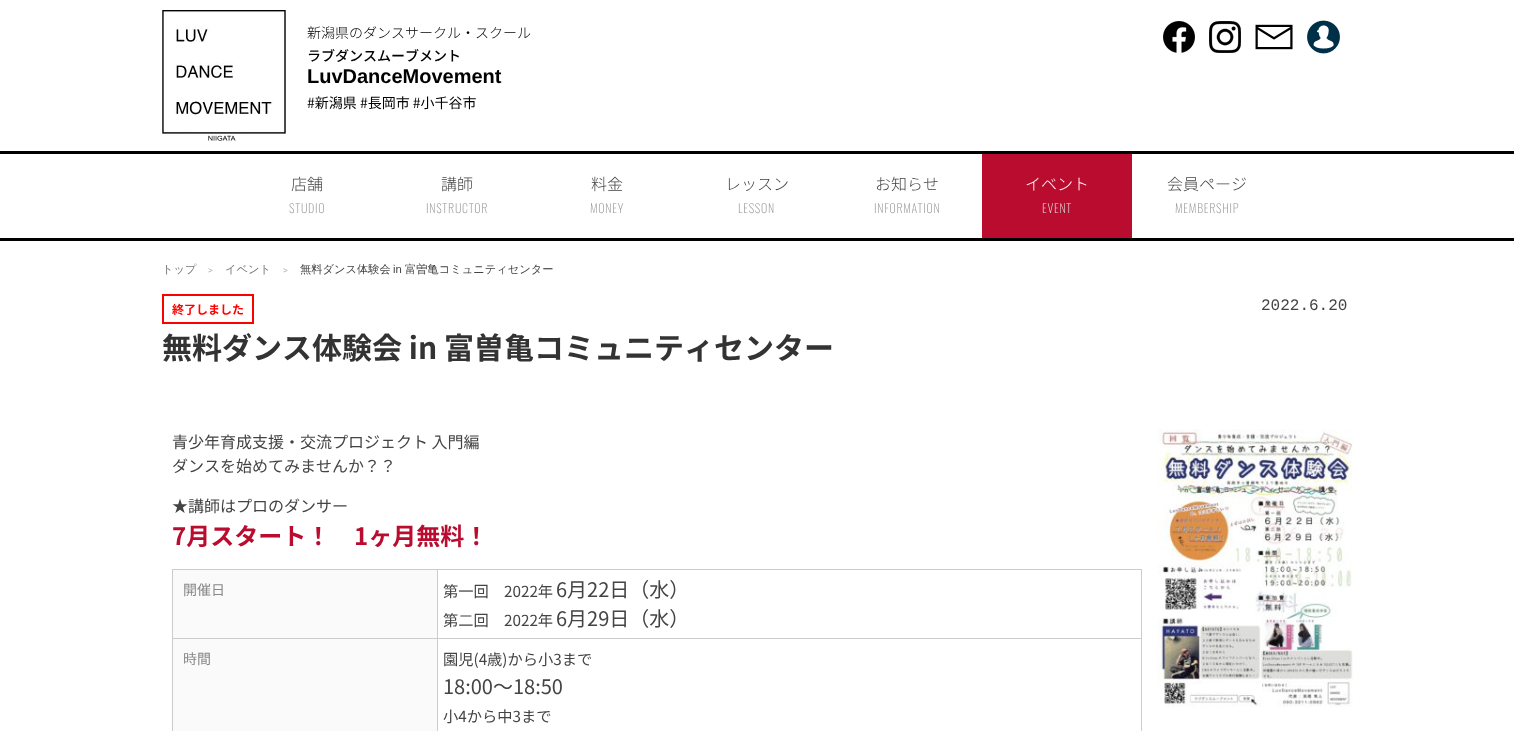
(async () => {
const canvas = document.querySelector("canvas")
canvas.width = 1514
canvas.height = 731
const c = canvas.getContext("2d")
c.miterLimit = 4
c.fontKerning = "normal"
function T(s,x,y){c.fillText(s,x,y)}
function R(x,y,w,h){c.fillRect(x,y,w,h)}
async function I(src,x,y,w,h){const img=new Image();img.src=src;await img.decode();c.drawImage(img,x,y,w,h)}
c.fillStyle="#fff"
R(0,0,1514,731)
await I("1.png",162,10,124,131)
c.font="300 14px Noto Sans JP"
c.fillStyle="#000"
T("新潟県のダンスサークル・スクール",307,38)
c.font="500 14px Noto Sans JP"
T("ラブダンスムーブメント",307,61)
c.font="bold 20px Liberation Sans"
T("LuvDanceMovement",307,83)
c.font="14px Noto Sans JP"
T("#新潟県 #長岡市 #小千谷市",307,108)
await I("2.png",1163,21,32,32)
await I("3.png",1209,21,32,32)
await I("4.png",1255,24,38,26)
await I("5.png",1307,20,33,34)
R(0,151,1514,3)
R(0,238,1514,3)
c.font="300 16px Noto Sans JP"
c.fillStyle="#444"
T("店舗",291,190)
c.letterSpacing="0.75px"
c.font="200 12px Oswald"
c.fillStyle="#959595"
T("STUDIO",289,213)
c.letterSpacing="0px"
c.font="300 16px Noto Sans JP"
c.fillStyle="#444"
T("講師",441,190)
c.letterSpacing="0.75px"
c.font="200 12px Oswald"
c.fillStyle="#959595"
T("INSTRUCTOR",426,213)
c.letterSpacing="0px"
c.font="300 16px Noto Sans JP"
c.fillStyle="#444"
T("料金",591,190)
c.letterSpacing="0.75px"
c.font="200 12px Oswald"
c.fillStyle="#959595"
T("MONEY",590,213)
c.letterSpacing="0px"
c.font="300 16px Noto Sans JP"
c.fillStyle="#444"
T("レッスン",725,190)
c.letterSpacing="0.75px"
c.font="200 12px Oswald"
c.fillStyle="#959595"
T("LESSON",738,213)
c.letterSpacing="0px"
c.font="300 16px Noto Sans JP"
c.fillStyle="#444"
T("お知らせ",875,190)
c.letterSpacing="0.75px"
c.font="200 12px Oswald"
c.fillStyle="#959595"
T("INFORMATION",874,213)
c.fillStyle="#ba0c2f"
R(982,154,150,84)
c.letterSpacing="0px"
c.font="300 16px Noto Sans JP"
c.fillStyle="#fff"
T("イベント",1025,190)
c.letterSpacing="0.75px"
c.font="200 12px Oswald"
c.fillStyle="#ddd"
T("EVENT",1042,213)
c.letterSpacing="0px"
c.font="300 16px Noto Sans JP"
c.fillStyle="#444"
T("会員ページ",1167,190)
c.letterSpacing="0.75px"
c.font="200 12px Oswald"
c.fillStyle="#959595"
T("MEMBERSHIP",1175,213)
c.letterSpacing="0px"
c.font="500 11.25px WenQuanYi Zen Hei"
c.fillStyle="#777"
T("トップ",162,273)
c.font="8px Liberation Sans"
c.fillStyle="#aaa"
T(">",208,273)
c.font="500 11.25px WenQuanYi Zen Hei"
c.fillStyle="#777"
T("イベント",225,273)
c.font="8px Liberation Sans"
c.fillStyle="#aaa"
T(">",283,273)
c.font="500 11.25px WenQuanYi Zen Hei"
c.fillStyle="#444"
T("無料ダンス体験会",300,273)
c.font="11.25px Liberation Sans"
T("in",393,273)
c.font="500 11.25px WenQuanYi Zen Hei"
T("富曽亀コミュニティセンター",405,273)
c.strokeStyle="#f00"
c.lineWidth=2
c.strokeRect(163,295,90,28)
c.font="bold 12px Noto Sans JP"
c.fillStyle="#f00"
T("終了しました",172,314)
c.font="16px Liberation Mono"
c.fillStyle="#444"
T("2022.6.20",1261,310)
c.font="bold 30px Noto Sans JP"
c.fillStyle="#333"
T("無料ダンス体験会 in 富曽亀コミュニティセンター",162,359)
c.font="16px Noto Sans JP"
c.fillStyle="#444"
T("青少年育成支援・交流プロジェクト 入門編",172,448)
T("ダンスを始めてみませんか？？",172,472)
T("★講師はプロのダンサー",172,512)
c.font="bold 24px Noto Sans JP"
c.fillStyle="#ba0c2f"
T("7月スタート！",172,545)
T("1ヶ月無料！",354,545)
c.fillStyle="#fafafa"
R(173,570,264,68)
c.fillStyle="#ccc"
R(437,569,705,1)
R(437,638,705,1)
R(437,638,1,93)
R(172,638,266,1)
R(437,569,1,70)
R(172,569,266,1)
R(172,638,1,93)
R(172,569,1,70)
c.font="14px Noto Sans JP"
c.fillStyle="#888"
T("開催日",183,595)
c.fillStyle="#ccc"
R(1141,638,1,93)
R(1141,569,1,70)
c.font="15.25px Noto Sans JP"
c.fillStyle="#444"
T("第一回　2022年",443,597)
c.font="20px Noto Sans JP"
T("6月22日（水）",556,597)
c.font="15.25px Noto Sans JP"
T("第二回　2022年",443,626)
c.font="20px Noto Sans JP"
T("6月29日（水）",556,626)
c.fillStyle="#fafafa"
R(173,639,264,92)
c.font="14px Noto Sans JP"
c.fillStyle="#888"
T("時間",183,664)
c.font="15.25px Noto Sans JP"
c.fillStyle="#444"
T("園児(4歳)から小3まで",443,665)
c.font="20px Noto Sans JP"
T("18:00～18:50",443,694)
c.font="15.25px Noto Sans JP"
T("小4から中3まで",443,722)
await I("6.png",1157,429,196,278)
})()
